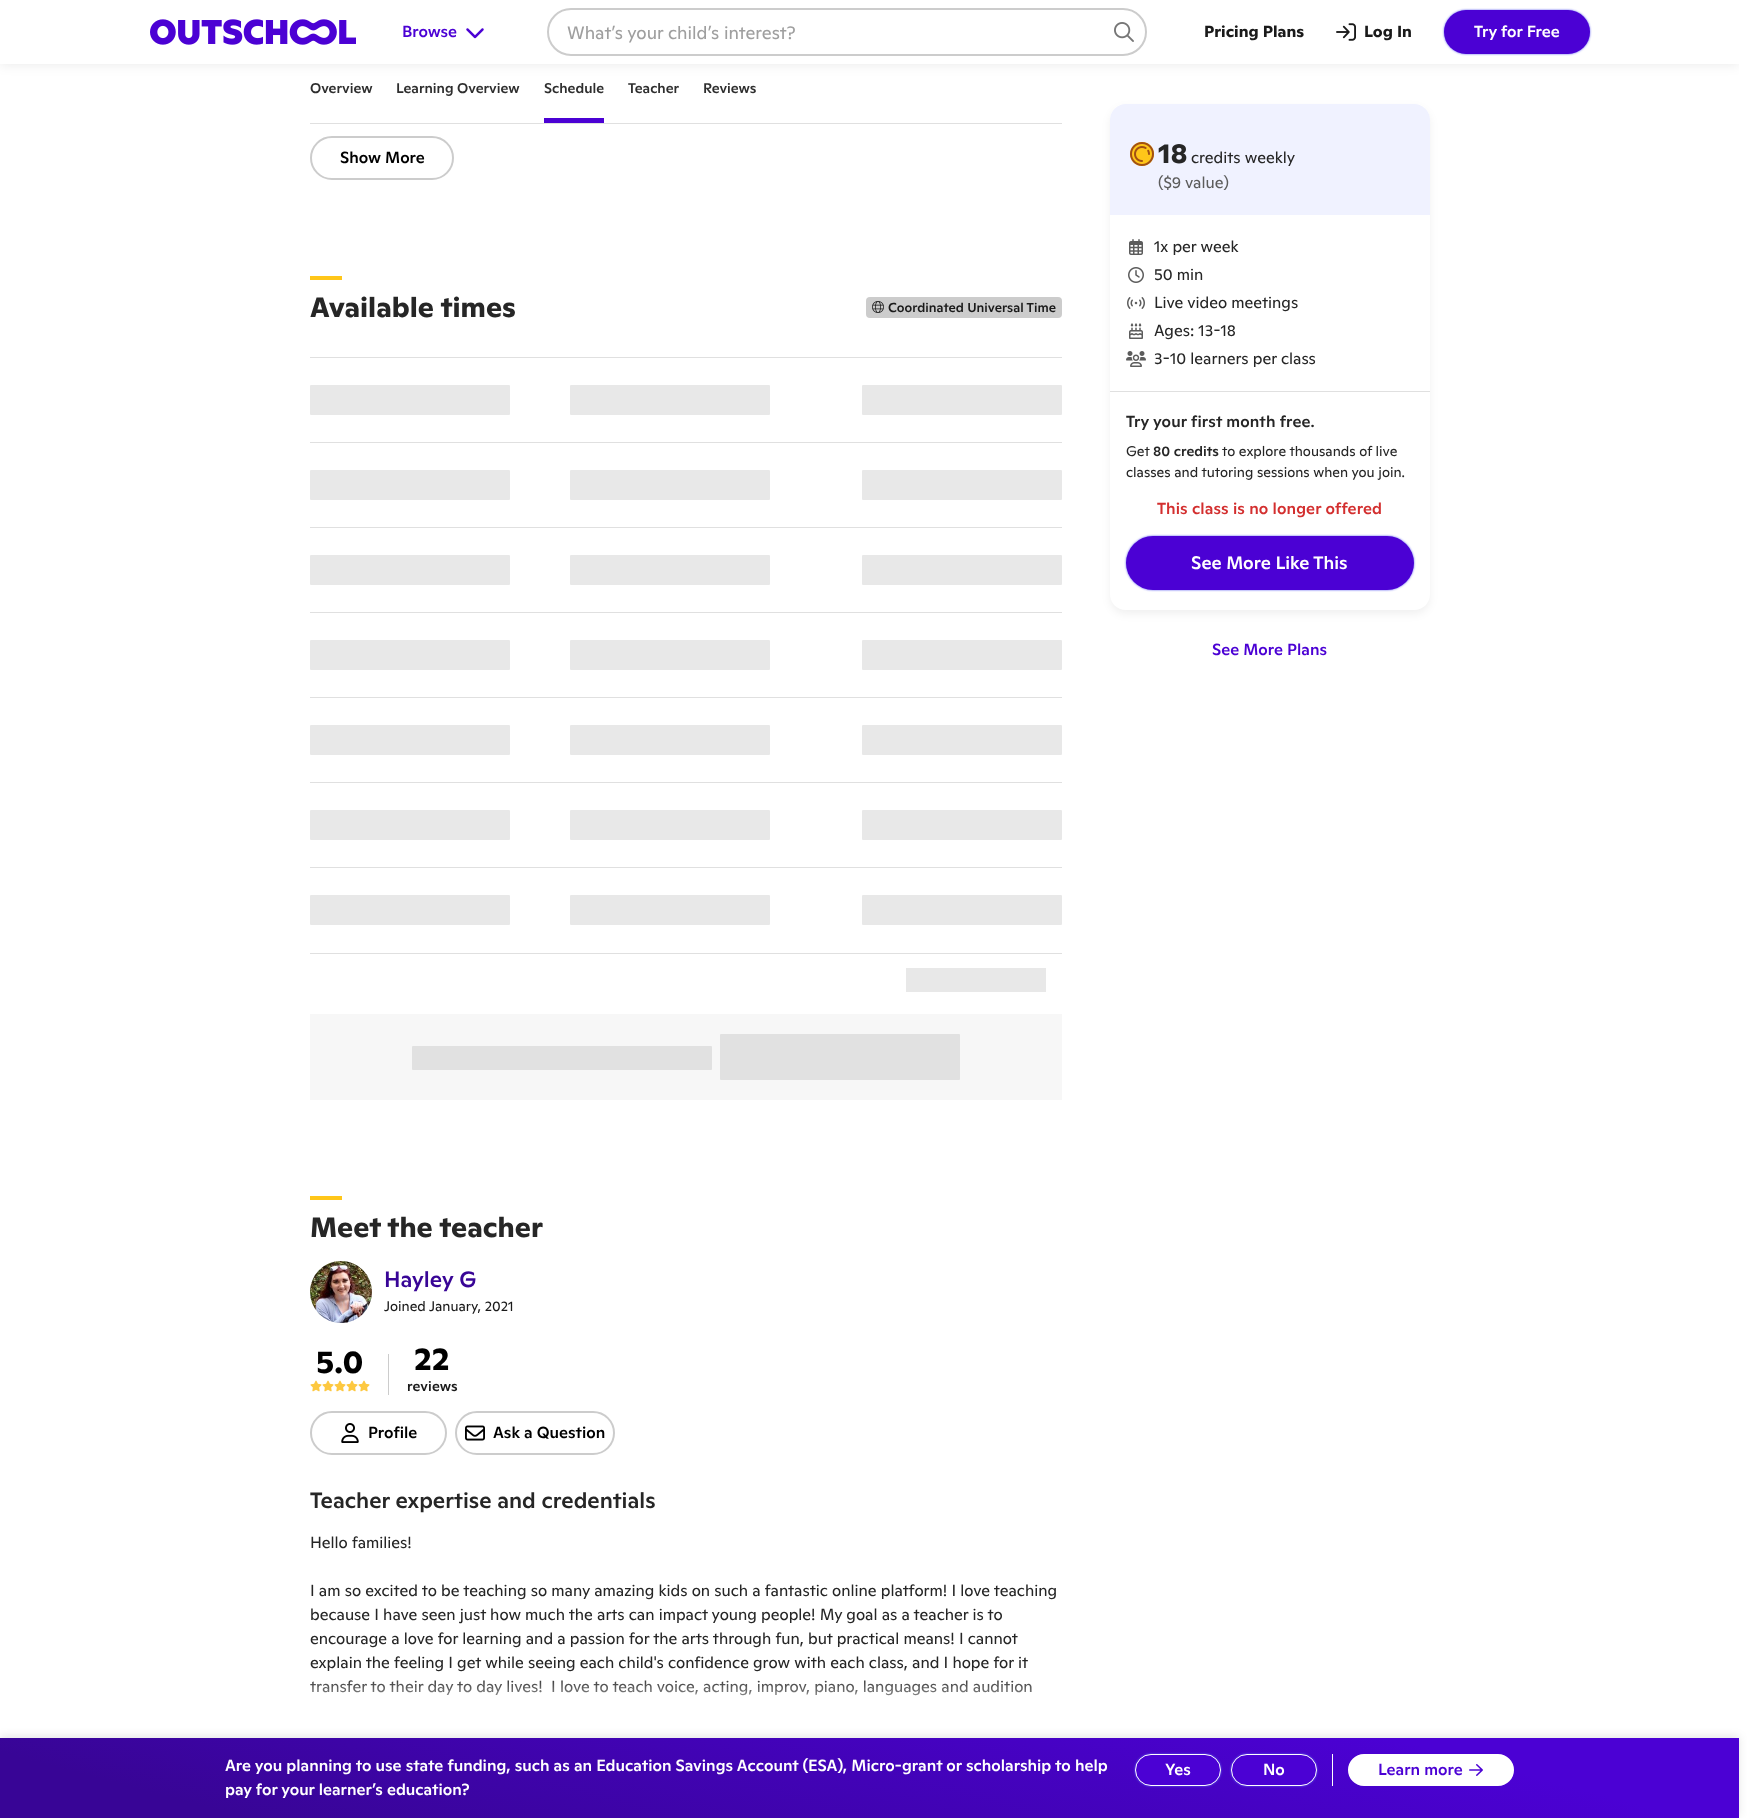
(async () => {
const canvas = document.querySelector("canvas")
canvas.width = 1754
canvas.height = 1818
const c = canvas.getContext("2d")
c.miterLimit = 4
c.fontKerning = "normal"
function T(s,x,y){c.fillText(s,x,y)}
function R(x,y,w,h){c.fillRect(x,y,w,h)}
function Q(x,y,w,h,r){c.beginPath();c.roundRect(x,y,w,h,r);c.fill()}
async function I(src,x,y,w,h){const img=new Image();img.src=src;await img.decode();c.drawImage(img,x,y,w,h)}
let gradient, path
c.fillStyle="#fff"
R(0,0,1754,1818)
c.save()
c.beginPath()
c.rect(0,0,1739,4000)
c.clip()
c.fillStyle="#00000014"
c.filter="blur(6px)"
c.beginPath()
c.rect(0,1,1739,64)
c.fill()
c.filter="none"
c.restore()
R(0,0,1739,64)
await I("1.png",150,19,206,26)
c.font="500 16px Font"
c.fillStyle="#4b01d4"
T("Browse",402,37)
await I("2.png",466,28,18,11)
c.beginPath()
c.roundRect(548,9,598,46,23)
c.strokeStyle="#ccc"
c.lineWidth=2
c.stroke()
c.font="18px Font"
c.fillStyle="#9f9f9f"
T("What’s your child’s interest?",567,39)
await I("3.png",1114,22,20,20)
c.font="bold 16px Font"
c.fillStyle="#1a1a1a"
T("Pricing Plans",1204,37)
await I("4.png",1336,23,20,18)
T("Log In",1364,37)
c.fillStyle="#6161f2"
c.filter="blur(1px)"
c.beginPath()
c.roundRect(1444,10,146,44,22)
c.fill()
c.filter="none"
c.fillStyle="#4b01d4"
Q(1444,10,146,44,22)
c.font="500 16px Font"
c.fillStyle="#fff"
T("Try for Free",1474,37)
c.fillStyle="#e0e0e0"
R(310,123,752,1)
c.font="500 14px Font"
c.fillStyle="#2e2e2e"
T("Overview",310,93)
T("Learning Overview",396,93)
T("Schedule",544,93)
T("Teacher",628,93)
T("Reviews",703,93)
c.fillStyle="#4b01d4"
R(544,118,60,5)
c.beginPath()
c.roundRect(311,137,142,42,21)
c.stroke()
c.font="500 16px Font"
c.fillStyle="#000"
T("Show More",340,163)
c.fillStyle="#ffc619"
R(310,276,32,4)
c.font="bold 28px Font"
c.fillStyle="#262626"
T("Available times",310,317)
c.fillStyle="#ccc"
Q(866,297,196,21,4)
await I("5.png",872,301,12,12)
c.font="500 13px Font"
c.fillStyle="#1a1a1a"
T("Coordinated Universal Time",888,312)
c.fillStyle="#e0e0e0"
R(310,357,752,1)
R(310,953,752,1)
c.fillStyle="#e8e8e8"
Q(310,385,200,30,1)
Q(570,385,200,30,1)
Q(862,385,200,30,1)
c.fillStyle="#e0e0e0"
R(310,442,752,1)
c.fillStyle="#e8e8e8"
Q(310,470,200,30,1)
Q(570,470,200,30,1)
Q(862,470,200,30,1)
c.fillStyle="#e0e0e0"
R(310,527,752,1)
c.fillStyle="#e8e8e8"
Q(310,555,200,30,1)
Q(570,555,200,30,1)
Q(862,555,200,30,1)
c.fillStyle="#e0e0e0"
R(310,612,752,1)
c.fillStyle="#e8e8e8"
Q(310,640,200,30,1)
Q(570,640,200,30,1)
Q(862,640,200,30,1)
c.fillStyle="#e0e0e0"
R(310,697,752,1)
c.fillStyle="#e8e8e8"
Q(310,725,200,30,1)
Q(570,725,200,30,1)
Q(862,725,200,30,1)
c.fillStyle="#e0e0e0"
R(310,782,752,1)
c.fillStyle="#e8e8e8"
Q(310,810,200,30,1)
Q(570,810,200,30,1)
Q(862,810,200,30,1)
c.fillStyle="#e0e0e0"
R(310,867,752,1)
c.fillStyle="#e8e8e8"
Q(310,895,200,30,1)
Q(570,895,200,30,1)
Q(862,895,200,30,1)
R(906,968,140,24)
c.fillStyle="#f7f7f7"
R(310,1014,752,86)
c.fillStyle="#e1e1e1"
Q(412,1046,300,24,1)
Q(720,1034,240,46,1)
c.fillStyle="#ffc619"
R(310,1196,32,4)
c.font="bold 28px Font"
c.fillStyle="#262626"
T("Meet the teacher",310,1237)
await I("6.png",310,1261,62,62)
c.beginPath()
c.arc(341,1292,30.5,0,7)
c.strokeStyle="#0000001a"
c.lineWidth=1
c.stroke()
c.font="500 22px Font"
c.fillStyle="#380596"
T("Hayley G",384,1287)
c.font="14px Font"
c.fillStyle="#1a1a1a"
T("Joined January, 2021",384,1311)
c.font="bold 32px Font"
c.fillStyle="#000"
T("5.0",316,1373)
await I("7.png",310,1380,12,12)
await I("7.png",322,1380,12,12)
await I("7.png",334,1380,12,12)
await I("7.png",346,1380,12,12)
await I("7.png",358,1380,12,12)
c.fillStyle="#ccc"
R(388,1354,1,41)
c.fillStyle="#000"
T("22",414,1370)
c.letterSpacing="0.1px"
c.font="500 14px Font"
c.fillStyle="#1a1a1a"
T("reviews",407,1391)
c.beginPath()
c.roundRect(311,1412,135,42,21)
c.strokeStyle="#ccc"
c.lineWidth=2
c.stroke()
await I("8.png",341,1423,18,20)
c.letterSpacing="0px"
c.font="500 16px Font"
c.fillStyle="#000"
T("Profile",368,1438)
c.beginPath()
c.roundRect(456,1412,158,42,21)
c.stroke()
await I("9.png",465,1425,20,16)
T("Ask a Question",493,1438)
c.font="500 22px Font"
c.fillStyle="#262626"
T("Teacher expertise and credentials",310,1508)
c.font="16px Font"
T("Hello families!",310,1548)
T("I am so excited to be teaching so many amazing kids on such a fantastic online platform! I love teaching",310,1596)
T("because I have seen just how much the arts can impact young people! My goal as a teacher is to",310,1620)
T("encourage a love for learning and a passion for the arts through fun, but practical means! I cannot",310,1644)
T("explain the feeling I get while seeing each child's confidence grow with each class, and I hope for it",310,1668)
T("transfer to their day to day lives!  I love to teach voice, acting, improv, piano, languages and audition",310,1692)
gradient = c.createLinearGradient(686,1531,686,1723)
gradient.addColorStop(.75,"#ffffff00")
gradient.addColorStop(1,"#fff")
c.fillStyle = gradient
R(310,1680,721,16)
c.save()
path = new Path2D("M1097 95h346v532h-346zm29 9h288c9 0 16 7 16 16v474c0 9-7 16-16 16h-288c-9 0-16-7-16-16v-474c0-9 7-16 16-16z")
c.clip(path,"evenodd")
c.fillStyle="#0000000f"
c.filter="blur(4px)"
c.beginPath()
c.roundRect(1110,108,320,506,16)
c.fill()
c.filter="none"
c.restore()
c.fillStyle="#f0f2ff"
c.beginPath()
c.roundRect(1110,104,320,111,[16,16,0,0])
c.fill()
await I("10.png",1130,142,24,24)
c.font="bold 28px Font"
c.fillStyle="#262626"
T("18",1158,163)
c.font="16px Font"
T("credits weekly",1191,163)
c.fillStyle="#5c5c5c"
T("($9 value)",1158,188)
await I("11.png",1129,239,14,16)
c.fillStyle="#262626"
T("1x per week",1154,252)
await I("12.png",1128,267,16,16)
T("50 min",1154,280)
await I("13.png",1127,297,18,12)
T("Live video meetings",1154,308)
await I("14.png",1129,323,14,16)
T("Ages: 13-18",1154,336)
await I("15.png",1126,351,20,16)
T("3-10 learners per class",1154,364)
c.fillStyle="#e0e0e0"
R(1110,391,320,1)
c.letterSpacing="0.1px"
c.font="500 16px Font"
c.fillStyle="#262626"
T("Try your first month free.",1126,427)
c.letterSpacing="0px"
c.font="14px Font"
T("Get",1126,456)
c.font="500 14px Font"
T("80 credits",1153,456)
c.font="14px Font"
T("to explore thousands of live",1222,456)
T("classes and tutoring sessions when you join.",1126,477)
c.letterSpacing="0.1px"
c.font="500 16px Font"
c.fillStyle="#d32f2f"
T("This class is no longer offered",1157,514)
c.fillStyle="#6161f2"
c.filter="blur(1px)"
c.beginPath()
c.roundRect(1126,536,288,54,27)
c.fill()
c.filter="none"
c.fillStyle="#4b01d4"
Q(1126,536,288,54,27)
c.letterSpacing="0px"
c.font="500 18px Font"
c.fillStyle="#fff"
T("See More Like This",1191,569)
c.font="500 16px Font"
c.fillStyle="#4b01d4"
T("See More Plans",1212,655)
c.fillStyle="#0000001a"
c.filter="blur(4px)"
c.beginPath()
c.rect(0,1736,1739,80)
c.fill()
c.filter="none"
gradient = c.createLinearGradient(938,1523,801,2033)
gradient.addColorStop(.17,"#4b01d4")
gradient.addColorStop(.88,"#380596")
c.fillStyle = gradient
R(0,1738,1739,80)
c.fillStyle="#fff"
T("Are you planning to use state funding, such as an Education Savings Account (ESA), Micro-grant or scholarship to help",225,1771)
T("pay for your learner’s education?",225,1795)
c.fillStyle="#6161f2"
c.filter="blur(1px)"
c.beginPath()
c.roundRect(1135,1754,86,32,16)
c.fill()
c.filter="none"
c.fillStyle="#4b01d4"
c.beginPath()
c.roundRect(1135.5,1754.5,85,31,15.5)
c.fill()
c.strokeStyle="#fff"
c.lineWidth=1
c.stroke()
c.fillStyle="#fff"
T("Yes",1165,1775)
c.fillStyle="#6161f2"
c.filter="blur(1px)"
c.beginPath()
c.roundRect(1231,1754,86,32,16)
c.fill()
c.filter="none"
c.fillStyle="#4b01d4"
c.beginPath()
c.roundRect(1231.5,1754.5,85,31,15.5)
c.fill()
c.stroke()
c.fillStyle="#fff"
T("No",1263,1775)
R(1332,1754,1,32)
c.beginPath()
c.roundRect(1349,1755,164,30,15)
c.fill()
c.lineWidth=2
c.stroke()
c.fillStyle="#4b01d4"
T("Learn more",1378,1775)
await I("16.png",1469,1764,14,12)
})()
